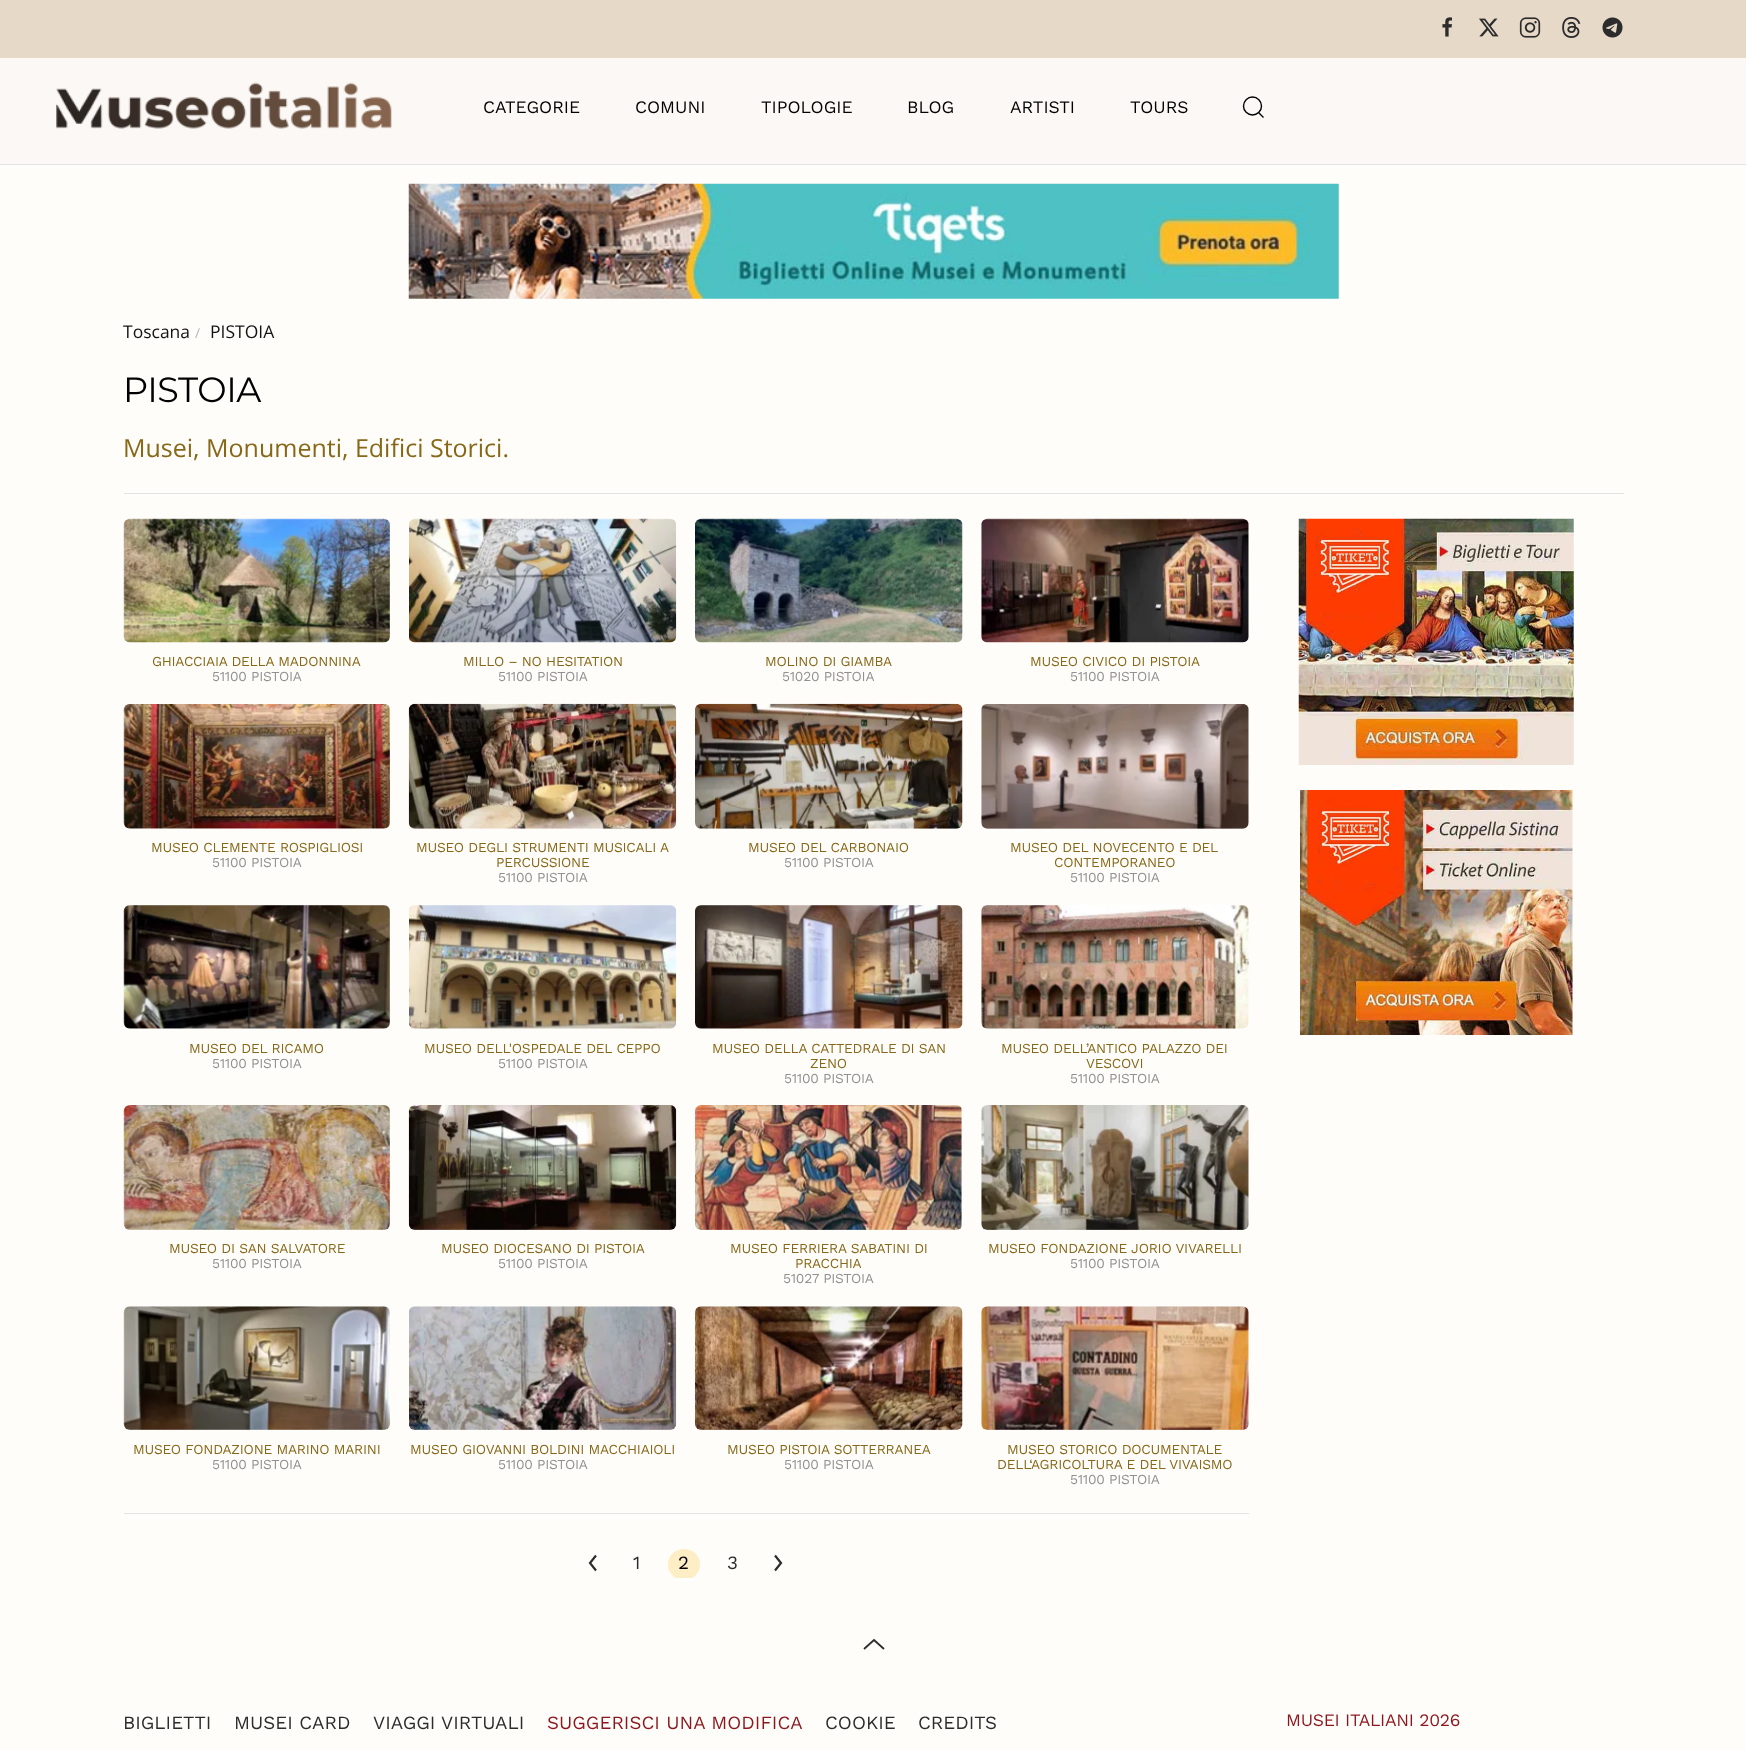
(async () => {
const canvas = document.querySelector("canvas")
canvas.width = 1746
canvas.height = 1750
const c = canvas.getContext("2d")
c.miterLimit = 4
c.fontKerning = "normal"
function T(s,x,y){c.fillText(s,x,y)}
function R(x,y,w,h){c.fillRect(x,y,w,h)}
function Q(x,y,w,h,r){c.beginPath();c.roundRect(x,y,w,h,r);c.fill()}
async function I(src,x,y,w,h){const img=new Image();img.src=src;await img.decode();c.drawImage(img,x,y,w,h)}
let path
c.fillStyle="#fffdfa"
R(0,0,1746,1750)
c.fillStyle="#e7d9c8"
R(0,0,1746,58)
await I("1.png",1442,17,10,20)
await I("2.png",1479,18,20,19)
await I("3.png",1519,17,22,21)
await I("4.png",1562,17,19,21)
await I("5.png",1602,17,21,21)
c.fillStyle="#fcf8f5"
R(0,58,1746,106)
c.fillStyle="#e3e3e3"
R(0,164,1746,1)
await I("6.png",56,82,336,47)
c.font="17.5px Work Sans"
c.fillStyle="#000"
T("CATEGORIE",483,113)
T("COMUNI",635,113)
T("TIPOLOGIE",761,113)
T("BLOG",907,113)
T("ARTISTI",1010,113)
T("TOURS",1130,113)
c.beginPath()
c.arc(1252.5,106,9,0,7)
c.strokeStyle="#000"
c.lineWidth=1.4
c.stroke()
path = new Path2D("M1258.5 112.5l5 5z")
c.stroke(path)
await I("7.png",408,183,931,116)
c.font="17.5px Open Sans"
c.fillStyle="#121314"
T("Toscana",123,338)
c.font="13.75px Open Sans"
c.fillStyle="#b4b5ba"
T("/",195,338)
c.font="17.5px Open Sans"
c.fillStyle="#121314"
T("PISTOIA",210,338)
c.letterSpacing="-0.5px"
c.font="35px Montserrat"
c.fillStyle="#000"
T("PISTOIA",123,402)
c.letterSpacing="0px"
c.font="25px Open Sans"
c.fillStyle="#876819"
T("Musei, Monumenti, Edifici Storici.",123,457)
c.fillStyle="#e3e3e3"
R(124,493,1500,1)
await I("8.png",123,518,267,125)
c.letterSpacing="-0.25px"
c.font="13.75px Work Sans"
c.fillStyle="#876819"
T("GHIACCIAIA DELLA MADONNINA",152,666)
c.fillStyle="#939091"
T("51100 PISTOIA",212,681)
await I("9.png",409,518,268,125)
c.fillStyle="#876819"
T("MILLO – NO HESITATION",463,666)
c.fillStyle="#939091"
T("51100 PISTOIA",498,681)
await I("10.png",695,518,268,125)
c.fillStyle="#876819"
T("MOLINO DI GIAMBA",765,666)
c.fillStyle="#939091"
T("51020 PISTOIA",782,681)
await I("11.png",981,518,268,125)
c.fillStyle="#876819"
T("MUSEO CIVICO DI PISTOIA",1030,666)
c.fillStyle="#939091"
T("51100 PISTOIA",1070,681)
await I("12.png",123,704,267,125)
c.fillStyle="#876819"
T("MUSEO CLEMENTE ROSPIGLIOSI",151,852)
c.fillStyle="#939091"
T("51100 PISTOIA",212,867)
await I("13.png",408,703,269,126)
c.fillStyle="#876819"
T("MUSEO DEGLI STRUMENTI MUSICALI A",416,852)
T("PERCUSSIONE",496,867)
c.fillStyle="#939091"
T("51100 PISTOIA",498,882)
await I("14.png",695,703,268,126)
c.fillStyle="#876819"
T("MUSEO DEL CARBONAIO",748,852)
c.fillStyle="#939091"
T("51100 PISTOIA",784,867)
await I("15.png",981,704,268,125)
c.fillStyle="#876819"
T("MUSEO DEL NOVECENTO E DEL",1010,852)
T("CONTEMPORANEO",1054,867)
c.fillStyle="#939091"
T("51100 PISTOIA",1070,882)
await I("16.png",123,905,267,124)
c.fillStyle="#876819"
T("MUSEO DEL RICAMO",189,1053)
c.fillStyle="#939091"
T("51100 PISTOIA",212,1068)
await I("17.png",409,905,268,124)
c.fillStyle="#876819"
T("MUSEO DELL'OSPEDALE DEL CEPPO",424,1053)
c.fillStyle="#939091"
T("51100 PISTOIA",498,1068)
await I("18.png",695,905,268,124)
c.fillStyle="#876819"
T("MUSEO DELLA CATTEDRALE DI SAN",712,1053)
T("ZENO",810,1068)
c.fillStyle="#939091"
T("51100 PISTOIA",784,1083)
await I("19.png",981,905,268,124)
c.fillStyle="#876819"
T("MUSEO DELL’ANTICO PALAZZO DEI",1001,1053)
T("VESCOVI",1086,1068)
c.fillStyle="#939091"
T("51100 PISTOIA",1070,1083)
await I("20.png",123,1105,267,125)
c.fillStyle="#876819"
T("MUSEO DI SAN SALVATORE",169,1253)
c.fillStyle="#939091"
T("51100 PISTOIA",212,1268)
await I("21.png",408,1105,269,125)
c.fillStyle="#876819"
T("MUSEO DIOCESANO DI PISTOIA",441,1253)
c.fillStyle="#939091"
T("51100 PISTOIA",498,1268)
await I("22.png",695,1105,267,125)
c.fillStyle="#876819"
T("MUSEO FERRIERA SABATINI DI",730,1253)
T("PRACCHIA",795,1268)
c.fillStyle="#939091"
T("51027 PISTOIA",783,1283)
await I("23.png",981,1105,268,125)
c.fillStyle="#876819"
T("MUSEO FONDAZIONE JORIO VIVARELLI",988,1253)
c.fillStyle="#939091"
T("51100 PISTOIA",1070,1268)
await I("24.png",123,1306,267,124)
c.fillStyle="#876819"
T("MUSEO FONDAZIONE MARINO MARINI",133,1454)
c.fillStyle="#939091"
T("51100 PISTOIA",212,1469)
await I("25.png",409,1306,268,124)
c.fillStyle="#876819"
T("MUSEO GIOVANNI BOLDINI MACCHIAIOLI",410,1454)
c.fillStyle="#939091"
T("51100 PISTOIA",498,1469)
await I("26.png",695,1306,268,124)
c.fillStyle="#876819"
T("MUSEO PISTOIA SOTTERRANEA",727,1454)
c.fillStyle="#939091"
T("51100 PISTOIA",784,1469)
await I("27.png",981,1306,268,124)
c.fillStyle="#876819"
T("MUSEO STORICO DOCUMENTALE",1007,1454)
T("DELL‘AGRICOLTURA E DEL VIVAISMO",997,1469)
c.fillStyle="#939091"
T("51100 PISTOIA",1070,1484)
c.fillStyle="#e3e3e3"
R(124,1513,1125,1)
path = new Path2D("M596 1555.5l-6 7.5l6 7.5")
c.strokeStyle="#2c2c2c"
c.lineWidth=2.2
c.stroke(path)
c.letterSpacing="0px"
c.font="18.75px Work Sans"
c.fillStyle="#2c2c2c"
T("1",633,1569)
c.fillStyle="#feeec6"
Q(668,1549,32,31,15.5)
c.fillStyle="#fff"
R(676,1578,17,3)
c.fillStyle="#000"
T("2",678,1569)
c.fillStyle="#2c2c2c"
T("3",727,1569)
path = new Path2D("M775 1570.5l6-7.5l-6-7.5")
c.stroke(path)
await I("28.png",1298,518,276,247)
await I("29.png",1300,790,273,245)
path = new Path2D("M864 1649l10-9l10 9")
c.lineWidth=1.8
c.stroke(path)
T("BIGLIETTI",123,1729)
T("MUSEI CARD",234,1729)
T("VIAGGI VIRTUALI",373,1729)
c.fillStyle="#8c161e"
T("SUGGERISCI UNA MODIFICA",547,1729)
c.fillStyle="#2c2c2c"
T("COOKIE",825,1729)
T("CREDITS",918,1729)
c.letterSpacing="-0.3px"
c.font="17.5px Work Sans"
c.fillStyle="#8c161e"
T("MUSEI ITALIANI 2026",1286,1726)
})()
